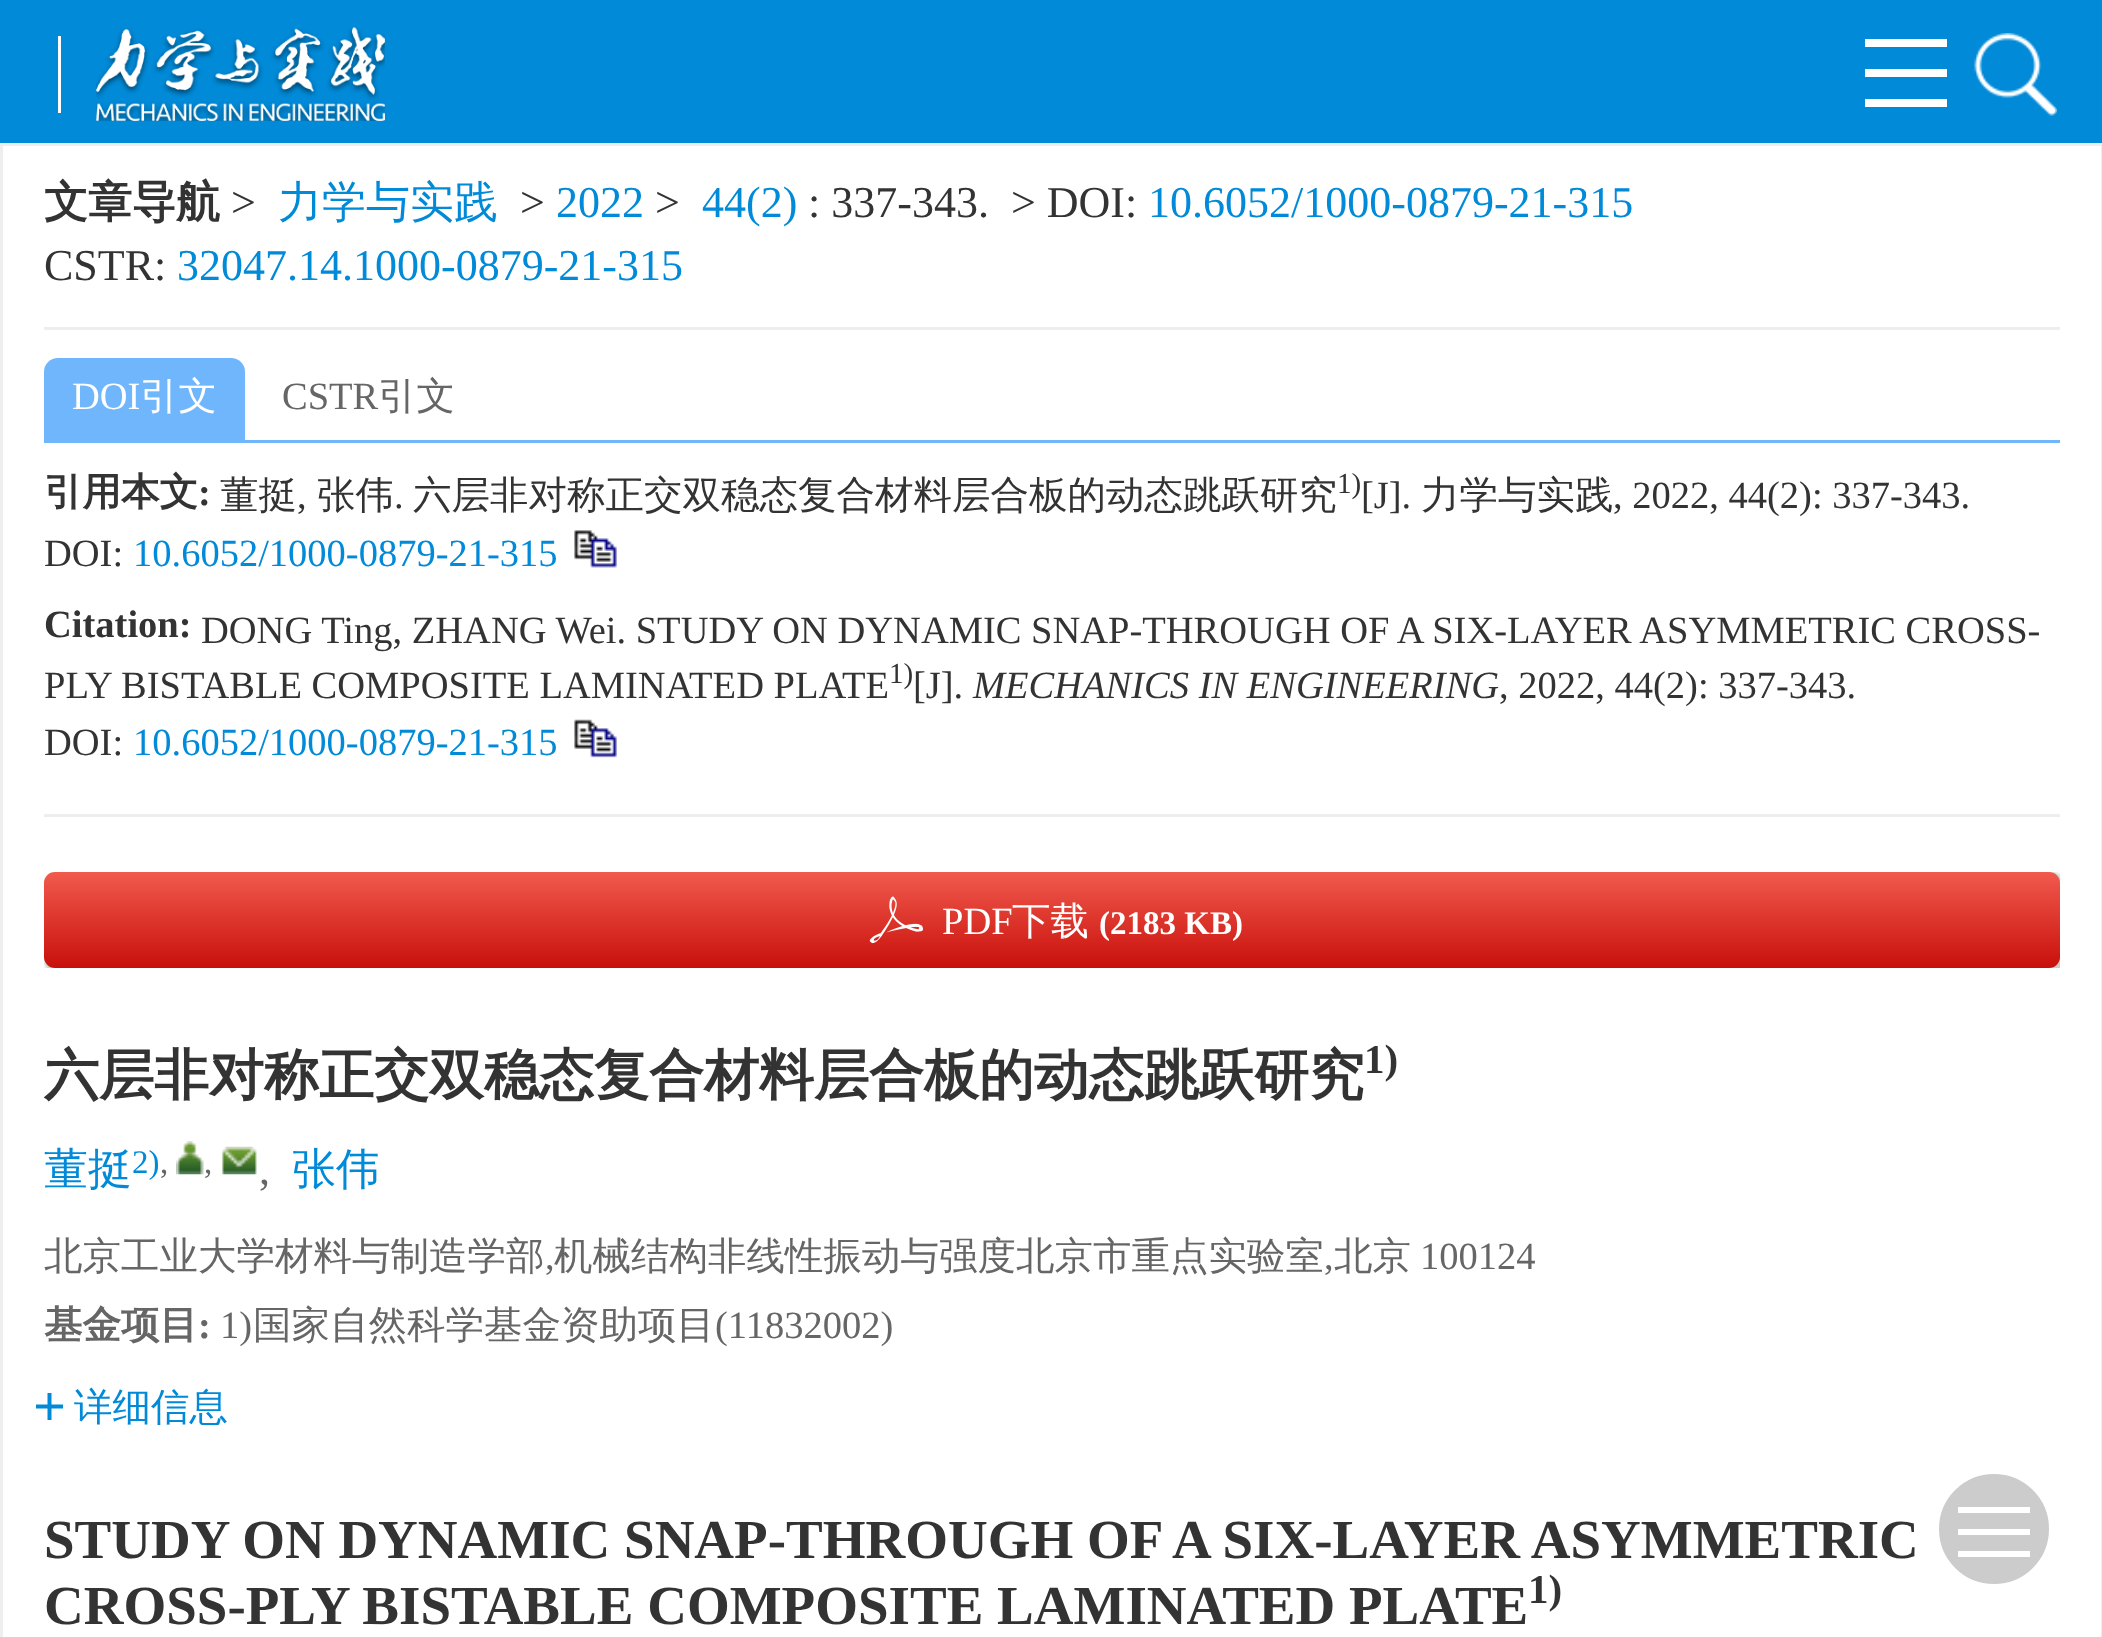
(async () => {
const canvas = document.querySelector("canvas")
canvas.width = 2102
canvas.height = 1637
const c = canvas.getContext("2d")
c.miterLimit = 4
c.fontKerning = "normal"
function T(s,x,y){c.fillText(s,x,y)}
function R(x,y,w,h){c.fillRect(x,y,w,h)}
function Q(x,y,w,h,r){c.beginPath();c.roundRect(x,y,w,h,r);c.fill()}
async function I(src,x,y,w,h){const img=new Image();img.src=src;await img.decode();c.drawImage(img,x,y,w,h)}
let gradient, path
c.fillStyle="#fff"
R(0,0,2102,1637)
c.fillStyle="#018ad8"
R(0,0,2102,143)
c.fillStyle="#fff"
R(58,36,3,77)
await I("1.png",96,27,289,94)
R(1865,39,82,8)
R(1865,69,82,8)
R(1865,99,82,8)
await I("2.png",1974,33,83,83)
c.strokeStyle="#eee"
c.lineWidth=3
c.strokeRect(1.5,144.5,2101,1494)
c.fillStyle="#eee"
R(44,327,2016,3)
c.font="bold 44px WenQuanYi Zen Hei"
c.fillStyle="#333"
T("文章导航",44,217)
c.font="44px Liberation Serif"
T(">",231,217)
c.font="500 44px WenQuanYi Zen Hei"
c.fillStyle="#018ad8"
T("力学与实践",278,217)
c.font="44px Liberation Serif"
c.fillStyle="#333"
T(">",520,217)
c.fillStyle="#018ad8"
T("2022",556,217)
c.fillStyle="#333"
T(">",655,217)
c.fillStyle="#018ad8"
T("44(2)",702,217)
c.fillStyle="#333"
T(": 337-343.",808,217)
T("> DOI:",1011,217)
c.fillStyle="#018ad8"
T("10.6052/1000-0879-21-315",1148,217)
c.fillStyle="#333"
T("CSTR:",44,280)
c.fillStyle="#018ad8"
T("32047.14.1000-0879-21-315",177,280)
c.fillStyle="#70b6fc"
R(44,440,2016,3)
c.beginPath()
c.roundRect(44,358,201,82,[14,14,0,0])
c.fill()
c.font="38.5px Liberation Serif"
c.fillStyle="#fff"
T("DOI",72,409)
c.font="500 38.5px WenQuanYi Zen Hei"
T("引文",140,409)
c.font="38.5px Liberation Serif"
c.fillStyle="#666"
T("CSTR",282,409)
c.font="500 38.5px WenQuanYi Zen Hei"
T("引文",378,409)
c.fillStyle="#eee"
R(44,814,2016,3)
c.font="bold 38.5px WenQuanYi Zen Hei"
c.fillStyle="#333"
T("引用本文",44,505)
c.font="500 38.5px WenQuanYi Zen Hei"
T("董挺",220,508)
c.font="38.5px Liberation Serif"
T(",",297,508)
c.font="500 38.5px WenQuanYi Zen Hei"
T("张伟",317,508)
c.font="38.5px Liberation Serif"
T(".",394,508)
c.font="500 38.5px WenQuanYi Zen Hei"
T("六层非对称正交双稳态复合材料层合板的动态跳跃研究",413,508)
c.font="29px Liberation Serif"
T("1)",1337,493)
c.font="38.5px Liberation Serif"
T("[J].",1361,508)
c.font="500 38.5px WenQuanYi Zen Hei"
T("力学与实践",1421,508)
c.font="38.5px Liberation Serif"
T(", 2022, 44(2): 337-343.",1613,508)
T("DOI:",44,566)
c.fillStyle="#018ad8"
T("10.6052/1000-0879-21-315",133,566)
await I("3.png",574,530,43,38)
c.font="bold 38.5px Liberation Serif"
c.fillStyle="#333"
T(":",198,505)
T("Citation:",44,637)
c.font="38.5px Liberation Serif"
T("DONG Ting, ZHANG Wei. STUDY ON DYNAMIC SNAP-THROUGH OF A SIX-LAYER ASYMMETRIC CROSS-",201,643)
T("PLY BISTABLE COMPOSITE LAMINATED PLATE",44,698)
c.font="29px Liberation Serif"
T("1)",889,683)
c.font="38.5px Liberation Serif"
T("[J].",913,698)
c.font="italic 38.5px Liberation Serif"
T("MECHANICS IN ENGINEERING",973,698)
c.font="38.5px Liberation Serif"
T(", 2022, 44(2): 337-343.",1499,698)
T("DOI:",44,755)
c.fillStyle="#018ad8"
T("10.6052/1000-0879-21-315",133,755)
await I("4.png",574,719,43,39)
c.save()
c.beginPath()
c.rect(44,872,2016,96)
c.clip()
c.fillStyle="#00000033"
c.filter="blur(1.5px)"
c.beginPath()
c.roundRect(44,872,2021,102,14)
c.fill()
c.filter="none"
c.restore()
gradient = c.createLinearGradient(1052,872,1052,968)
gradient.addColorStop(0,"#f15a4d")
gradient.addColorStop(1,"#c8100b")
c.fillStyle = gradient
Q(44,872,2016,96,11)
await I("5.png",869,896,54,48)
c.fillStyle="#fff"
T("PDF",942,934)
c.font="500 38.5px WenQuanYi Zen Hei"
T("下载",1012,934)
c.font="bold 33px Liberation Serif"
T("(2183 KB)",1099,934)
c.font="bold 55px WenQuanYi Zen Hei"
c.fillStyle="#333"
T("六层非对称正交双稳态复合材料层合板的动态跳跃研究",44,1094)
c.font="bold 41px Liberation Serif"
T("1)",1364,1073)
c.font="500 44px WenQuanYi Zen Hei"
c.fillStyle="#018ad8"
T("董挺",44,1184)
c.font="33px Liberation Serif"
T("2)",132,1173)
c.fillStyle="#666"
T(",",160,1173)
await I("6.png",176,1141,28,34)
T(",",204,1173)
await I("7.png",222,1146,35,29)
c.font="44px Liberation Serif"
T(",",259,1184)
c.font="500 44px WenQuanYi Zen Hei"
c.fillStyle="#018ad8"
T("张伟",292,1184)
c.font="500 38.5px WenQuanYi Zen Hei"
c.fillStyle="#666"
T("北京工业大学材料与制造学部",44,1269)
c.font="38.5px Liberation Serif"
T(",",545,1269)
c.font="500 38.5px WenQuanYi Zen Hei"
T("机械结构非线性振动与强度北京市重点实验室",554,1269)
c.font="38.5px Liberation Serif"
T(",",1324,1269)
c.font="500 38.5px WenQuanYi Zen Hei"
T("北京",1334,1269)
c.font="38.5px Liberation Serif"
T("100124",1420,1269)
c.font="bold 38.5px WenQuanYi Zen Hei"
T("基金项目",44,1338)
c.font="bold 38.5px Liberation Serif"
T(":",198,1338)
c.font="38.5px Liberation Serif"
T("1)",220,1338)
c.font="500 38.5px WenQuanYi Zen Hei"
T("国家自然科学基金资助项目",253,1338)
c.font="38.5px Liberation Serif"
T("(11832002)",715,1338)
c.fillStyle="#018ad8"
path = new Path2D("M36 1404.5h27v4h-27zm11.5-11.5h4v27h-4z")
c.fill(path)
c.font="500 38.5px WenQuanYi Zen Hei"
T("详细信息",74,1420)
c.font="bold 55px Liberation Serif"
c.fillStyle="#333"
T("STUDY ON DYNAMIC SNAP-THROUGH OF A SIX-LAYER ASYMMETRIC",44,1558)
T("CROSS-PLY BISTABLE COMPOSITE LAMINATED PLATE",44,1624)
c.font="bold 41px Liberation Serif"
T("1)",1528,1603)
c.fillStyle="#ccc"
c.beginPath()
c.arc(1994,1529,53.5,0,7)
c.fill()
c.strokeStyle="#ccc"
c.stroke()
c.fillStyle="#fff"
R(1958,1507,72,6)
R(1958,1529,72,6)
R(1958,1551,72,6)
})()
